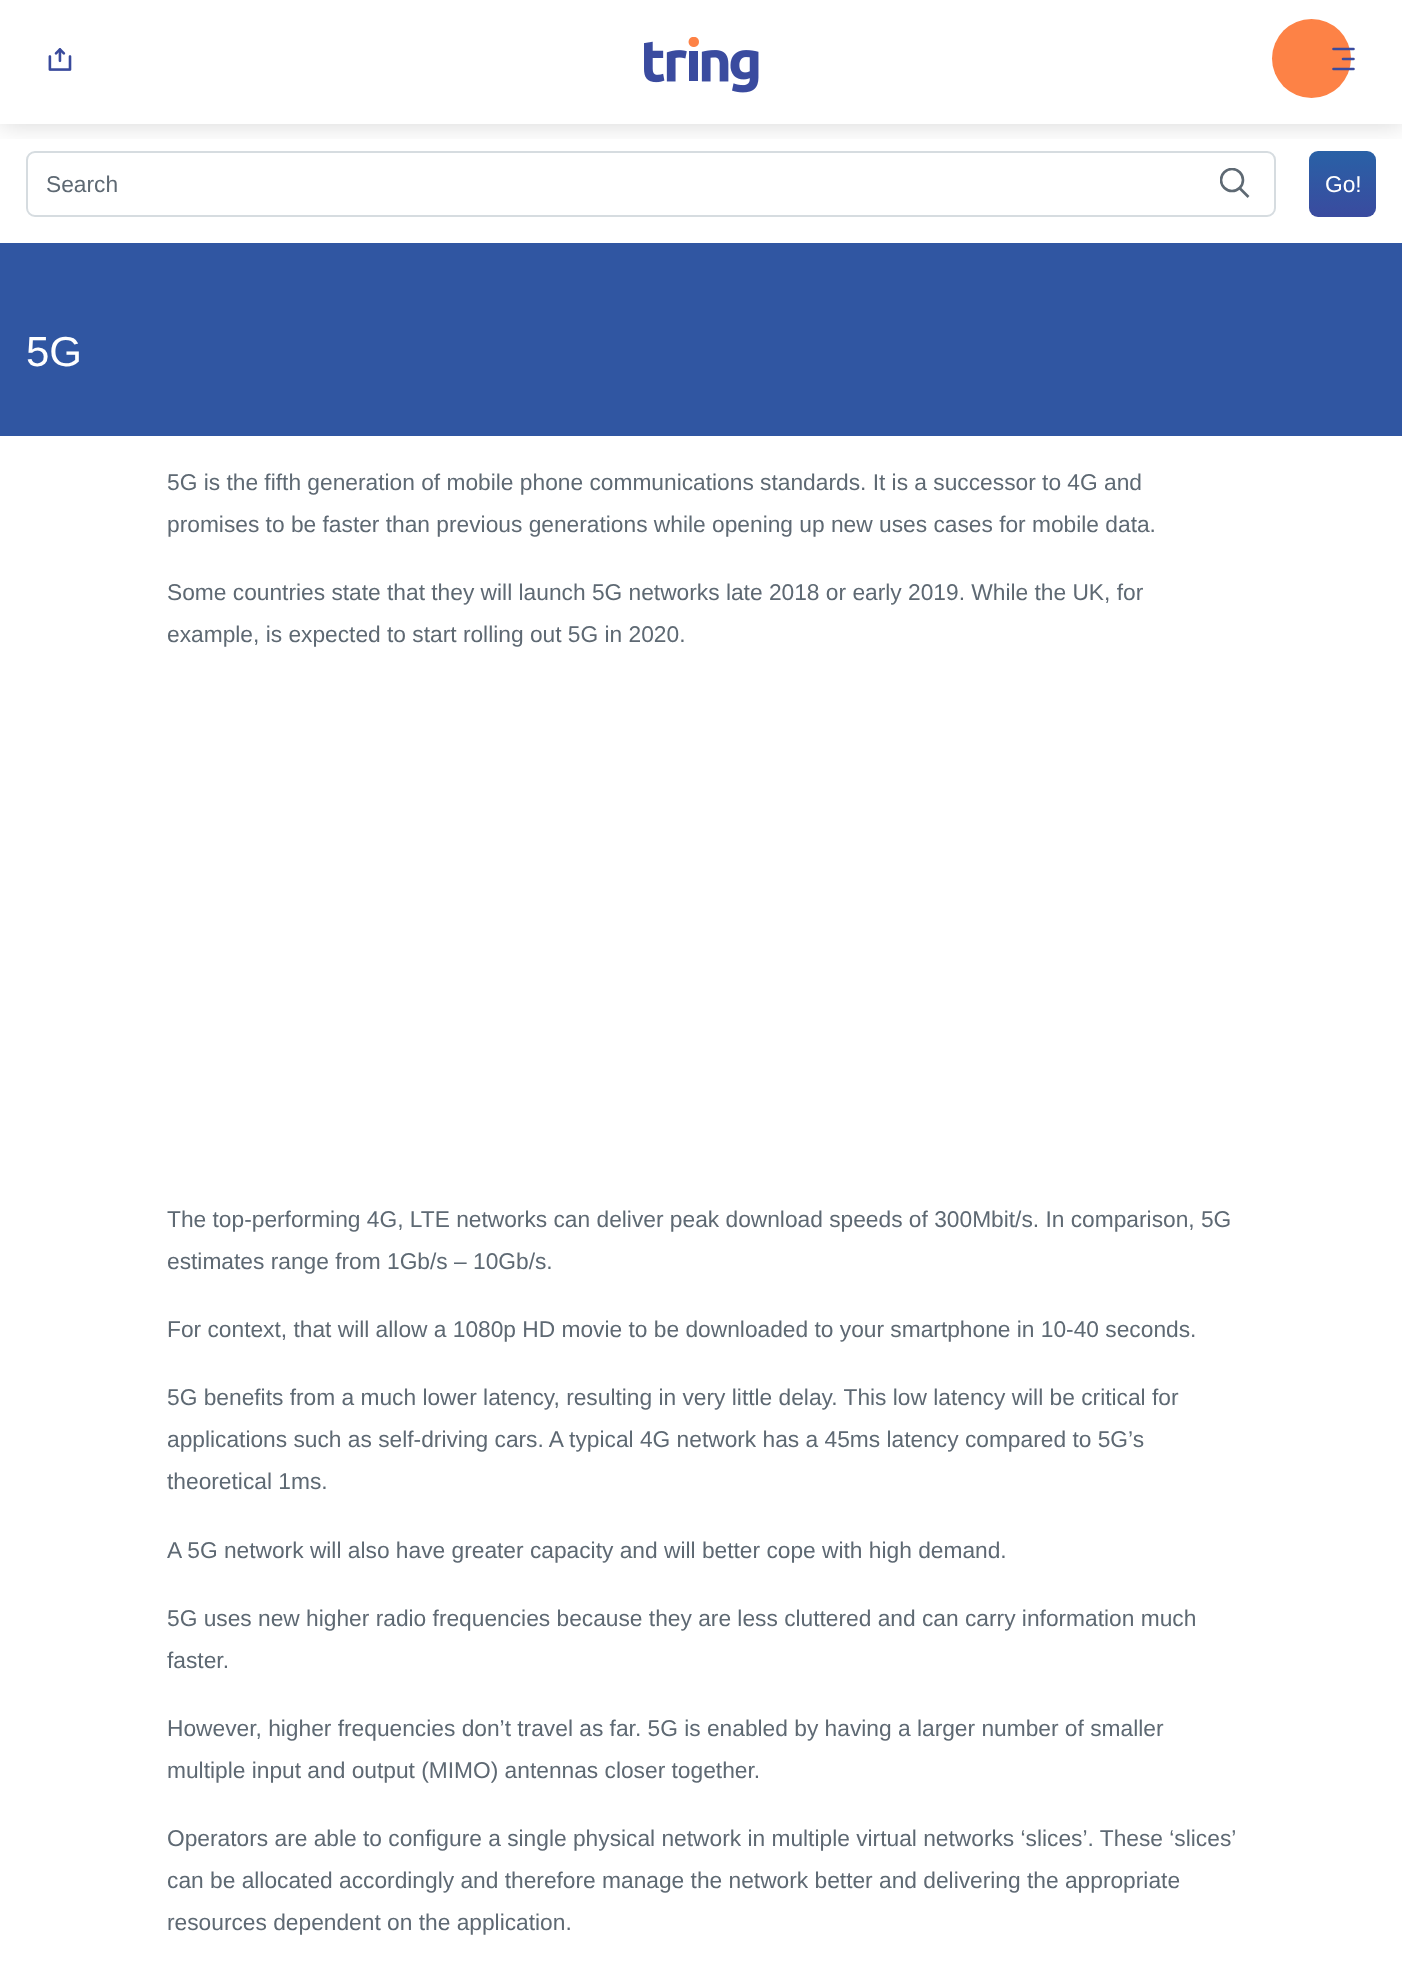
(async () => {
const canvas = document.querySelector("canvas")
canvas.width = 1402
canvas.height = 1975
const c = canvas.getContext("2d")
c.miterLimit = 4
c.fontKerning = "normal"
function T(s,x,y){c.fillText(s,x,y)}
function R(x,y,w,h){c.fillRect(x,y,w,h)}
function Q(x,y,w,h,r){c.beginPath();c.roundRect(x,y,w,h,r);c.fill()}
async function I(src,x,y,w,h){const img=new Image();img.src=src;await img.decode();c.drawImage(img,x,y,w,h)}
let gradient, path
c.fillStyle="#fff"
R(0,0,1402,1975)
c.save()
c.beginPath()
c.rect(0,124,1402,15)
c.clip()
c.fillStyle="#00000029"
c.filter="blur(13px)"
c.beginPath()
c.rect(0,0,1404,124)
c.fill()
c.filter="none"
c.restore()
await I("1.png",644,37,115,56)
c.fillStyle="#fd8246"
c.beginPath()
c.arc(1311.5,58.5,39.5,0,7)
c.fill()
await I("2.png",48,48,24,23)
path = new Path2D("M1333.5 49h20m-10.5 10h10.5m-20 10h20")
c.strokeStyle="#3a4b9f"
c.lineWidth=2.6
c.lineCap="round"
c.stroke(path)
c.beginPath()
c.roundRect(27,152,1248,64,8)
c.strokeStyle="#d6dce0"
c.lineWidth=2
c.stroke()
c.font="22.75px Liberation Sans"
c.fillStyle="#5e6973"
T("Search",46,192)
c.save()
c.beginPath()
c.rect(1220,168,30,30)
c.clip()
c.beginPath()
c.arc(1232,180,11,0,7)
c.strokeStyle="#5e6973"
c.lineWidth=2.6
c.stroke()
c.restore()
path = new Path2D("M1239.5 188l9 9")
c.strokeStyle="#5e6973"
c.lineWidth=2.6
c.lineCap="butt"
c.lineJoin="round"
c.stroke(path)
gradient = c.createLinearGradient(1342,151,1342,217)
gradient.addColorStop(0,"#2961a6")
gradient.addColorStop(1,"#3a4b9f")
c.fillStyle = gradient
Q(1309,151,67,66,9)
c.fillStyle="#fff"
T("Go!",1325,192)
c.fillStyle="#3056a2"
R(0,243,1402,193)
c.font="42px Liberation Sans"
c.fillStyle="#fff"
T("5G",26,366)
c.font="22.75px Liberation Sans"
c.fillStyle="#5e6973"
T("5G is the fifth generation of mobile phone communications standards. It is a successor to 4G and",167,490)
T("promises to be faster than previous generations while opening up new uses cases for mobile data.",167,532)
T("Some countries state that they will launch 5G networks late 2018 or early 2019. While the UK, for",167,600)
T("example, is expected to start rolling out 5G in 2020.",167,642)
T("The top-performing 4G, LTE networks can deliver peak download speeds of 300Mbit/s. In comparison, 5G",167,1227)
T("estimates range from 1Gb/s – 10Gb/s.",167,1269)
T("For context, that will allow a 1080p HD movie to be downloaded to your smartphone in 10-40 seconds.",167,1337)
T("5G benefits from a much lower latency, resulting in very little delay. This low latency will be critical for",167,1405)
T("applications such as self-driving cars. A typical 4G network has a 45ms latency compared to 5G’s",167,1447)
T("theoretical 1ms.",167,1489)
T("A 5G network will also have greater capacity and will better cope with high demand.",167,1558)
T("5G uses new higher radio frequencies because they are less cluttered and can carry information much",167,1626)
T("faster.",167,1668)
T("However, higher frequencies don’t travel as far. 5G is enabled by having a larger number of smaller",167,1736)
T("multiple input and output (MIMO) antennas closer together.",167,1778)
T("Operators are able to configure a single physical network in multiple virtual networks ‘slices’. These ‘slices’",167,1846)
T("can be allocated accordingly and therefore manage the network better and delivering the appropriate",167,1888)
T("resources dependent on the application.",167,1930)
})()
